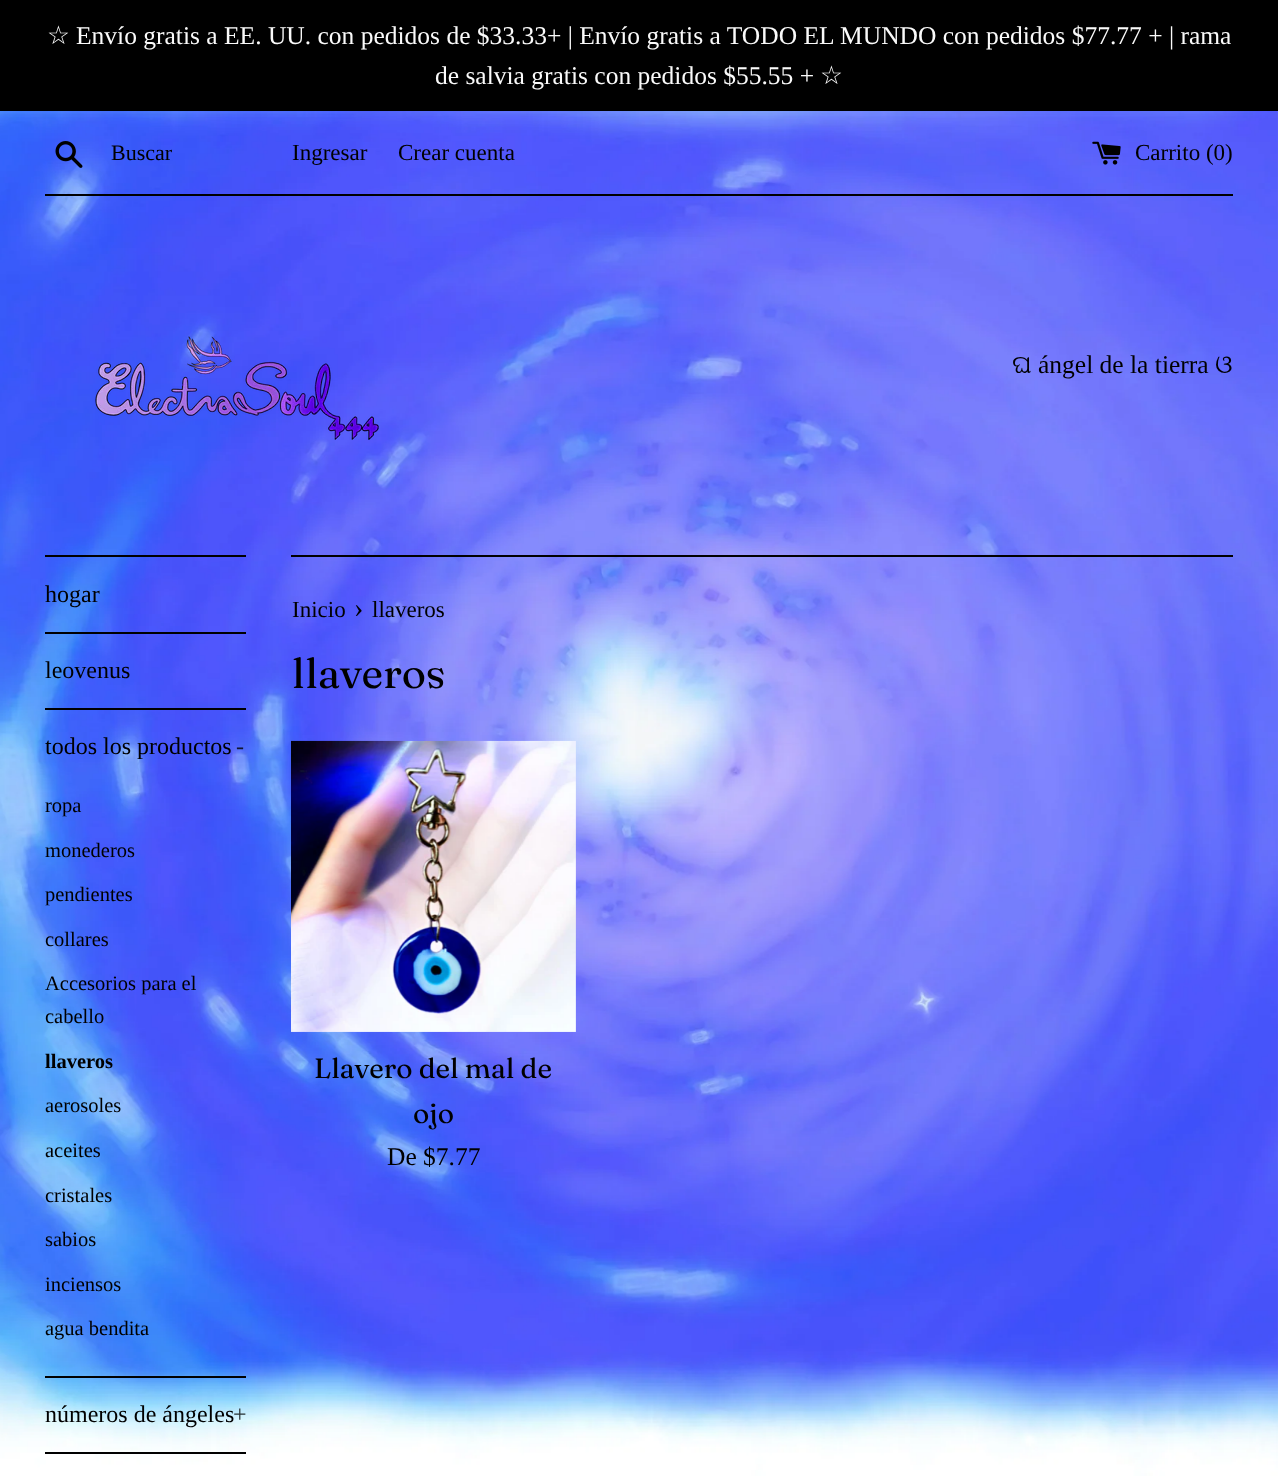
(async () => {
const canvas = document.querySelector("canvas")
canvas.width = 1278
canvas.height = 1476
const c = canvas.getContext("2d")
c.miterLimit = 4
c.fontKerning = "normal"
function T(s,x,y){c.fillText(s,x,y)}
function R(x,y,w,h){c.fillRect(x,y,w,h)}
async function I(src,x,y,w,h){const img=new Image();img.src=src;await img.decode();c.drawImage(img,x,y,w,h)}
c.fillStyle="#fff"
R(0,0,1278,1476)
await I("1.png",1277,111,1,1365)
await I("2.png",0,111,1278,1365)
c.fillStyle="#000"
R(0,0,1278,111)
c.font="25.5px DejaVu Sans"
c.fillStyle="#fafafa"
T("☆",47,44)
c.font="25.5px Liberation Serif"
T("Envío gratis a EE. UU. con pedidos de $33.33+ | Envío gratis a TODO EL MUNDO con pedidos $77.77 + | rama",76,44)
T("de salvia gratis con pedidos $55.55 +",435,84)
c.font="25.5px DejaVu Sans"
T("☆",820,84)
await I("3.png",55,141,28,27)
c.font="22px Liberation Serif"
c.fillStyle="#000"
T("Buscar",111,160)
c.font="23px Liberation Serif"
T("Ingresar",292,160)
T("Crear cuenta",398,160)
await I("4.png",1092,141,29,24)
T("Carrito (0)",1135,160)
R(45,194,1188,2)
await I("5.png",95,336,284,104)
c.font="25.5px FreeSerif"
T("ଘ",1012,373)
c.font="25.5px Liberation Serif"
T("ángel de la tierra",1038,373)
c.font="25.5px FreeSerif"
T("ଓ",1215,373)
R(45,555,201,2)
R(45,632,201,2)
c.font="24px Liberation Serif"
T("hogar",45,602)
R(45,708,201,2)
T("leovenus",45,678)
R(45,1376,201,2)
T("todos los productos",45,754)
c.fillStyle="#111632"
T("-",236,754)
c.font="20.5px Liberation Serif"
c.fillStyle="#000"
T("ropa",45,812)
T("monederos",45,857)
T("pendientes",45,901)
T("collares",45,946)
T("Accesorios para el",45,990)
T("cabello",45,1023)
c.font="bold 20.5px Liberation Serif"
T("llaveros",45,1068)
c.font="20.5px Liberation Serif"
T("aerosoles",45,1112)
T("aceites",45,1157)
T("cristales",45,1202)
T("sabios",45,1246)
T("inciensos",45,1291)
T("agua bendita",45,1335)
R(45,1452,201,2)
c.font="24px Liberation Serif"
T("números de ángeles",45,1422)
c.fillStyle="#273033"
T("+",233,1422)
c.fillStyle="#000"
R(291,555,942,2)
c.font="23px Liberation Serif"
T("Inicio",292,617)
c.font="28px Liberation Serif"
T("›",354,617)
c.font="23px Liberation Serif"
T("llaveros",372,617)
c.font="42px Fraunces"
T("llaveros",292,688)
await I("6.png",291,740,285,292)
c.font="28px 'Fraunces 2'"
T("Llavero del mal de",314,1078)
T("ojo",413,1123)
c.font="25.5px Liberation Serif"
T("De $7.77",387,1165)
})()
